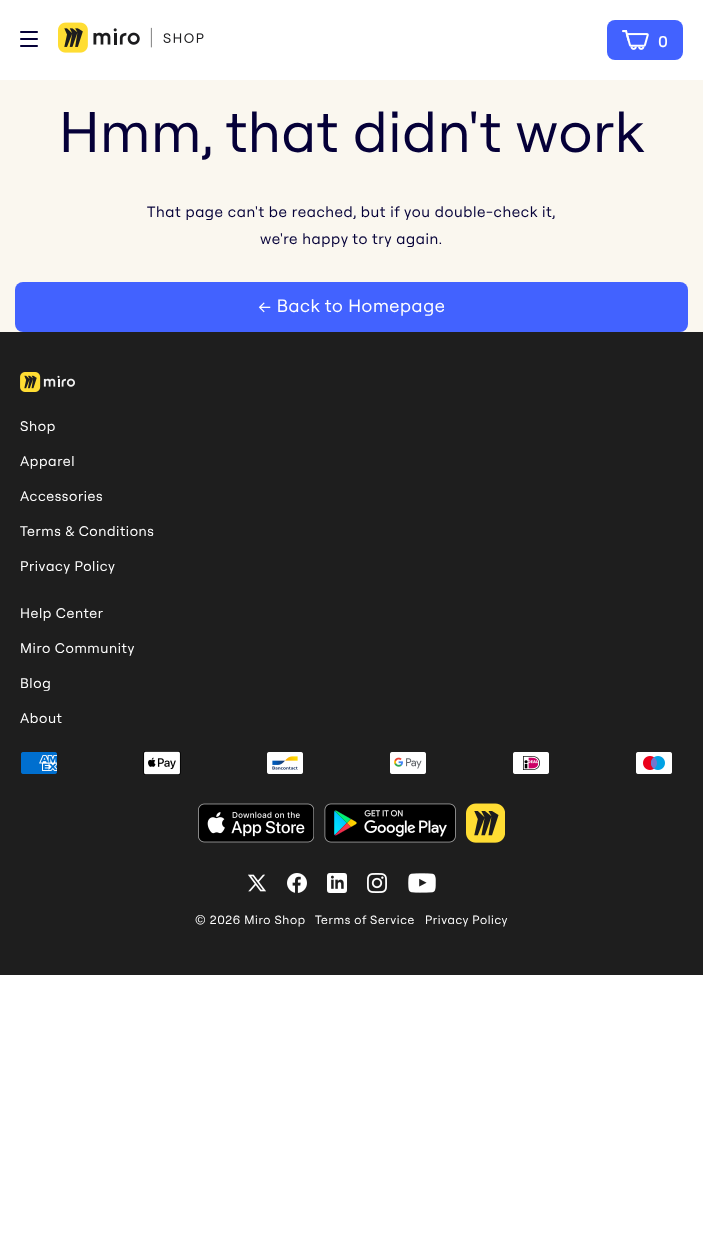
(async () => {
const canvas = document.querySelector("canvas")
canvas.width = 703
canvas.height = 1241
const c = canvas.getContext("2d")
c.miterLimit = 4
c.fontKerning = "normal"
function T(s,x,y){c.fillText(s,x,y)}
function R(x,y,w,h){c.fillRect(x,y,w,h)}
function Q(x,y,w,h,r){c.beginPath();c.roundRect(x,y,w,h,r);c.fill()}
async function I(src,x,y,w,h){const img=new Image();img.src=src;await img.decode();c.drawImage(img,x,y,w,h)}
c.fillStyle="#fff"
R(0,0,703,1241)
await I("1.png",20,31,18,16)
await I("2.png",58,22,146,31)
c.fillStyle="#4262ff"
Q(607,20,76,40,8)
await I("3.png",622,30,27,20)
c.letterSpacing="0.6px"
c.font="bold 15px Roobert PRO"
c.fillStyle="#fff"
T("0",658,47)
c.fillStyle="#faf7ef"
R(0,80,703,252)
c.font="57px Roobert PRO"
c.fillStyle="#050038"
T("Hmm, that didn't work",59,152)
c.font="15px Roobert PRO"
T("That page can't be reached, but if you double-check it,",147,217)
T("we're happy to try again.",260,244)
c.fillStyle="#4262ff"
Q(15,282,673,50,8)
c.font="18px Roobert PRO"
c.fillStyle="#fff"
T("← Back to Homepage",258,312)
c.fillStyle="#1e1e1e"
R(0,332,703,643)
await I("4.png",20,372,55,20)
c.font="14px Roobert PRO"
c.fillStyle="#fff"
T("Shop",20,431)
T("Apparel",20,466)
T("Accessories",20,501)
T("Terms & Conditions",20,536)
T("Privacy Policy",20,571)
T("Help Center",20,618)
T("Miro Community",20,653)
T("Blog",20,688)
T("About",20,723)
await I("5.png",21,752,36,22)
await I("6.png",143,751,38,24)
await I("7.png",267,752,36,22)
await I("8.png",390,752,36,22)
await I("9.png",513,752,36,22)
await I("10.png",636,752,36,22)
await I("11.png",198,803,116,40)
await I("12.png",324,803,132,40)
await I("13.png",466,803,39,40)
await I("14.png",248,874,18,18)
await I("15.png",287,873,20,20)
await I("16.png",327,873,20,20)
await I("17.png",367,873,20,20)
await I("18.png",408,873,28,20)
c.font="12px Roobert PRO"
T("© 2026 Miro Shop",195,924)
T("Terms of Service",315,924)
T("Privacy Policy",425,924)
})()
